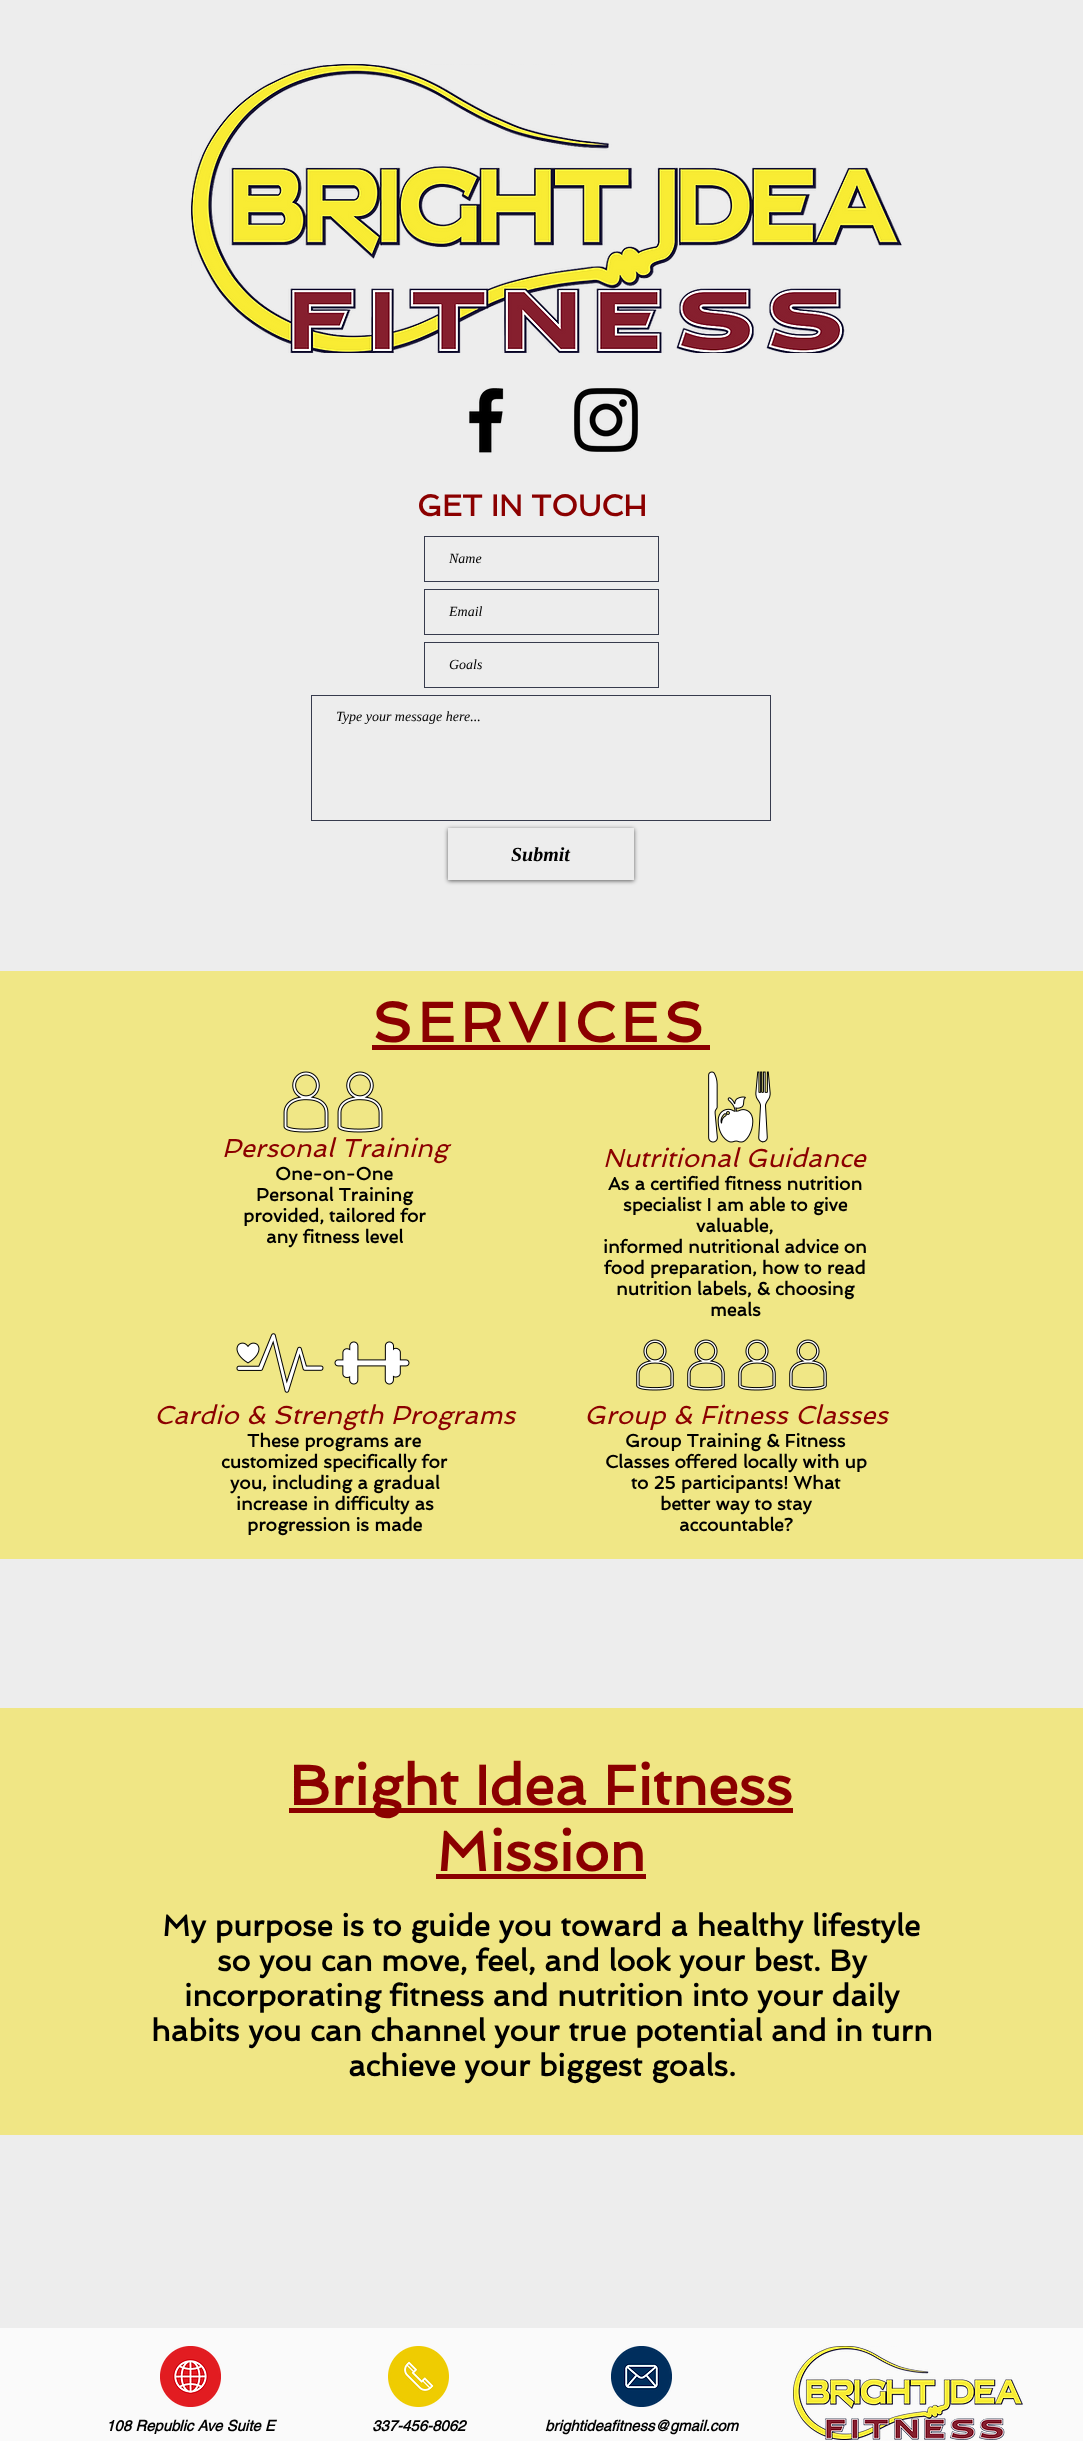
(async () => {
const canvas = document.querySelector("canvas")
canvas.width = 1083
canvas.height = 2441
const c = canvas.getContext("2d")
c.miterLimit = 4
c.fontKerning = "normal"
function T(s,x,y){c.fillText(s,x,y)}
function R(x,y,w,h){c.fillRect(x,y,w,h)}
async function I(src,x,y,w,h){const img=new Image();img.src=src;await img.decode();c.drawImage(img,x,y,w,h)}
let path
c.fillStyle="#ededed"
R(0,0,1083,2441)
await I("1.png",191,64,711,289)
await I("2.png",469,388,35,65)
await I("3.png",574,388,64,64)
c.font="bold 30px Spinnaker"
c.fillStyle="#8b0000"
T("GET IN TOUCH",417,516)
c.strokeStyle="#373b4d"
c.strokeRect(424.5,536.5,234,45)
c.font="italic 14px Liberation Serif"
c.fillStyle="#000"
T("Name",449,563)
c.strokeRect(424.5,589.5,234,45)
T("Email",449,616)
c.strokeRect(424.5,642.5,234,45)
T("Goals",449,669)
c.strokeRect(311.5,695.5,459,125)
T("Type your message here...",336,721)
c.save()
path = new Path2D("M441 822h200v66h-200zm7 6h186v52h-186z")
c.clip(path,"evenodd")
c.fillStyle="#00000099"
c.filter="blur(2px)"
c.beginPath()
c.rect(448,829,186,52)
c.fill()
c.filter="none"
c.restore()
c.font="italic bold 20px Liberation Serif"
T("Submit",511,861)
c.fillStyle="#f0e786"
R(0,971,1083,588)
c.letterSpacing="5.5px"
c.font="bold 56px Spinnaker"
c.fillStyle="#8b0000"
T("SERVICES",372,1042)
R(372,1045,338,5)
await I("4.png",283,1071,46,62)
await I("4.png",337,1071,46,62)
await I("5.png",708,1071,10,72)
await I("6.png",717,1096,37,47)
await I("7.png",755,1071,16,72)
c.letterSpacing="0px"
c.font="italic 26px Spinnaker"
T("Personal Training",222,1157)
T("Nutritional Guidance",603,1167)
c.font="bold 18px Spinnaker"
c.fillStyle="#000"
T("One-on-One",275,1180)
T("Personal Training",256,1201)
T("provided, tailored for",243,1222)
T("any fitness level",266,1243)
T("As a certified fitness nutrition",608,1190)
T("specialist I am able to give",623,1211)
T("valuable,",696,1232)
T("informed nutritional advice on",603,1253)
T("food preparation, how to read",604,1274)
T("nutrition labels, & choosing",616,1295)
T("meals",710,1316)
await I("8.png",236,1333,88,60)
await I("9.png",334,1341,76,44)
await I("10.png",636,1339,38,52)
await I("10.png",687,1339,38,52)
await I("10.png",738,1339,38,52)
await I("10.png",789,1339,38,52)
await I("11.png",236,1342,24,22)
c.font="italic 26px Spinnaker"
c.fillStyle="#8b0000"
T("Cardio & Strength Programs",154,1424)
T("Group & Fitness Classes",584,1424)
c.font="bold 18px Spinnaker"
c.fillStyle="#000"
T("These programs are",247,1447)
T("customized specifically for",221,1468)
T("you, including a gradual",230,1489)
T("increase in difficulty as",236,1510)
T("progression is made",247,1531)
T("Group Training & Fitness",625,1447)
T("Classes offered locally with up",605,1468)
T("to 25 participants! What",631,1489)
T("better way to stay",660,1510)
T("accountable?",679,1531)
c.fillStyle="#f0e685"
R(0,1708,1083,427)
c.fillStyle="#8b0000"
R(289,1808,504,5)
c.font="bold 56px Spinnaker"
T("Bright Idea Fitness",289,1805)
T("Mission",436,1871)
R(436,1874,210,5)
c.font="bold 30px Spinnaker"
c.fillStyle="#000"
T("My purpose is to guide you toward a healthy lifestyle",162,1936)
T("so you can move, feel, and look your best. By",217,1971)
T("incorporating fitness and nutrition into your daily",184,2006)
T("habits you can channel your true potential and in turn",151,2041)
T("achieve your biggest goals.",348,2076)
c.fillStyle="#fafafa"
R(0,2328,1083,113)
await I("12.png",160,2346,61,61)
await I("13.png",388,2346,61,61)
await I("14.png",611,2346,61,61)
await I("15.png",793,2346,230,94)
c.font="italic bold 15px helvetica"
c.fillStyle="#000"
T("108 Republic Ave Suite E",106,2431)
T("337-456-8062",372,2431)
T("brightideafitness@gmail.com",545,2431)
})()
